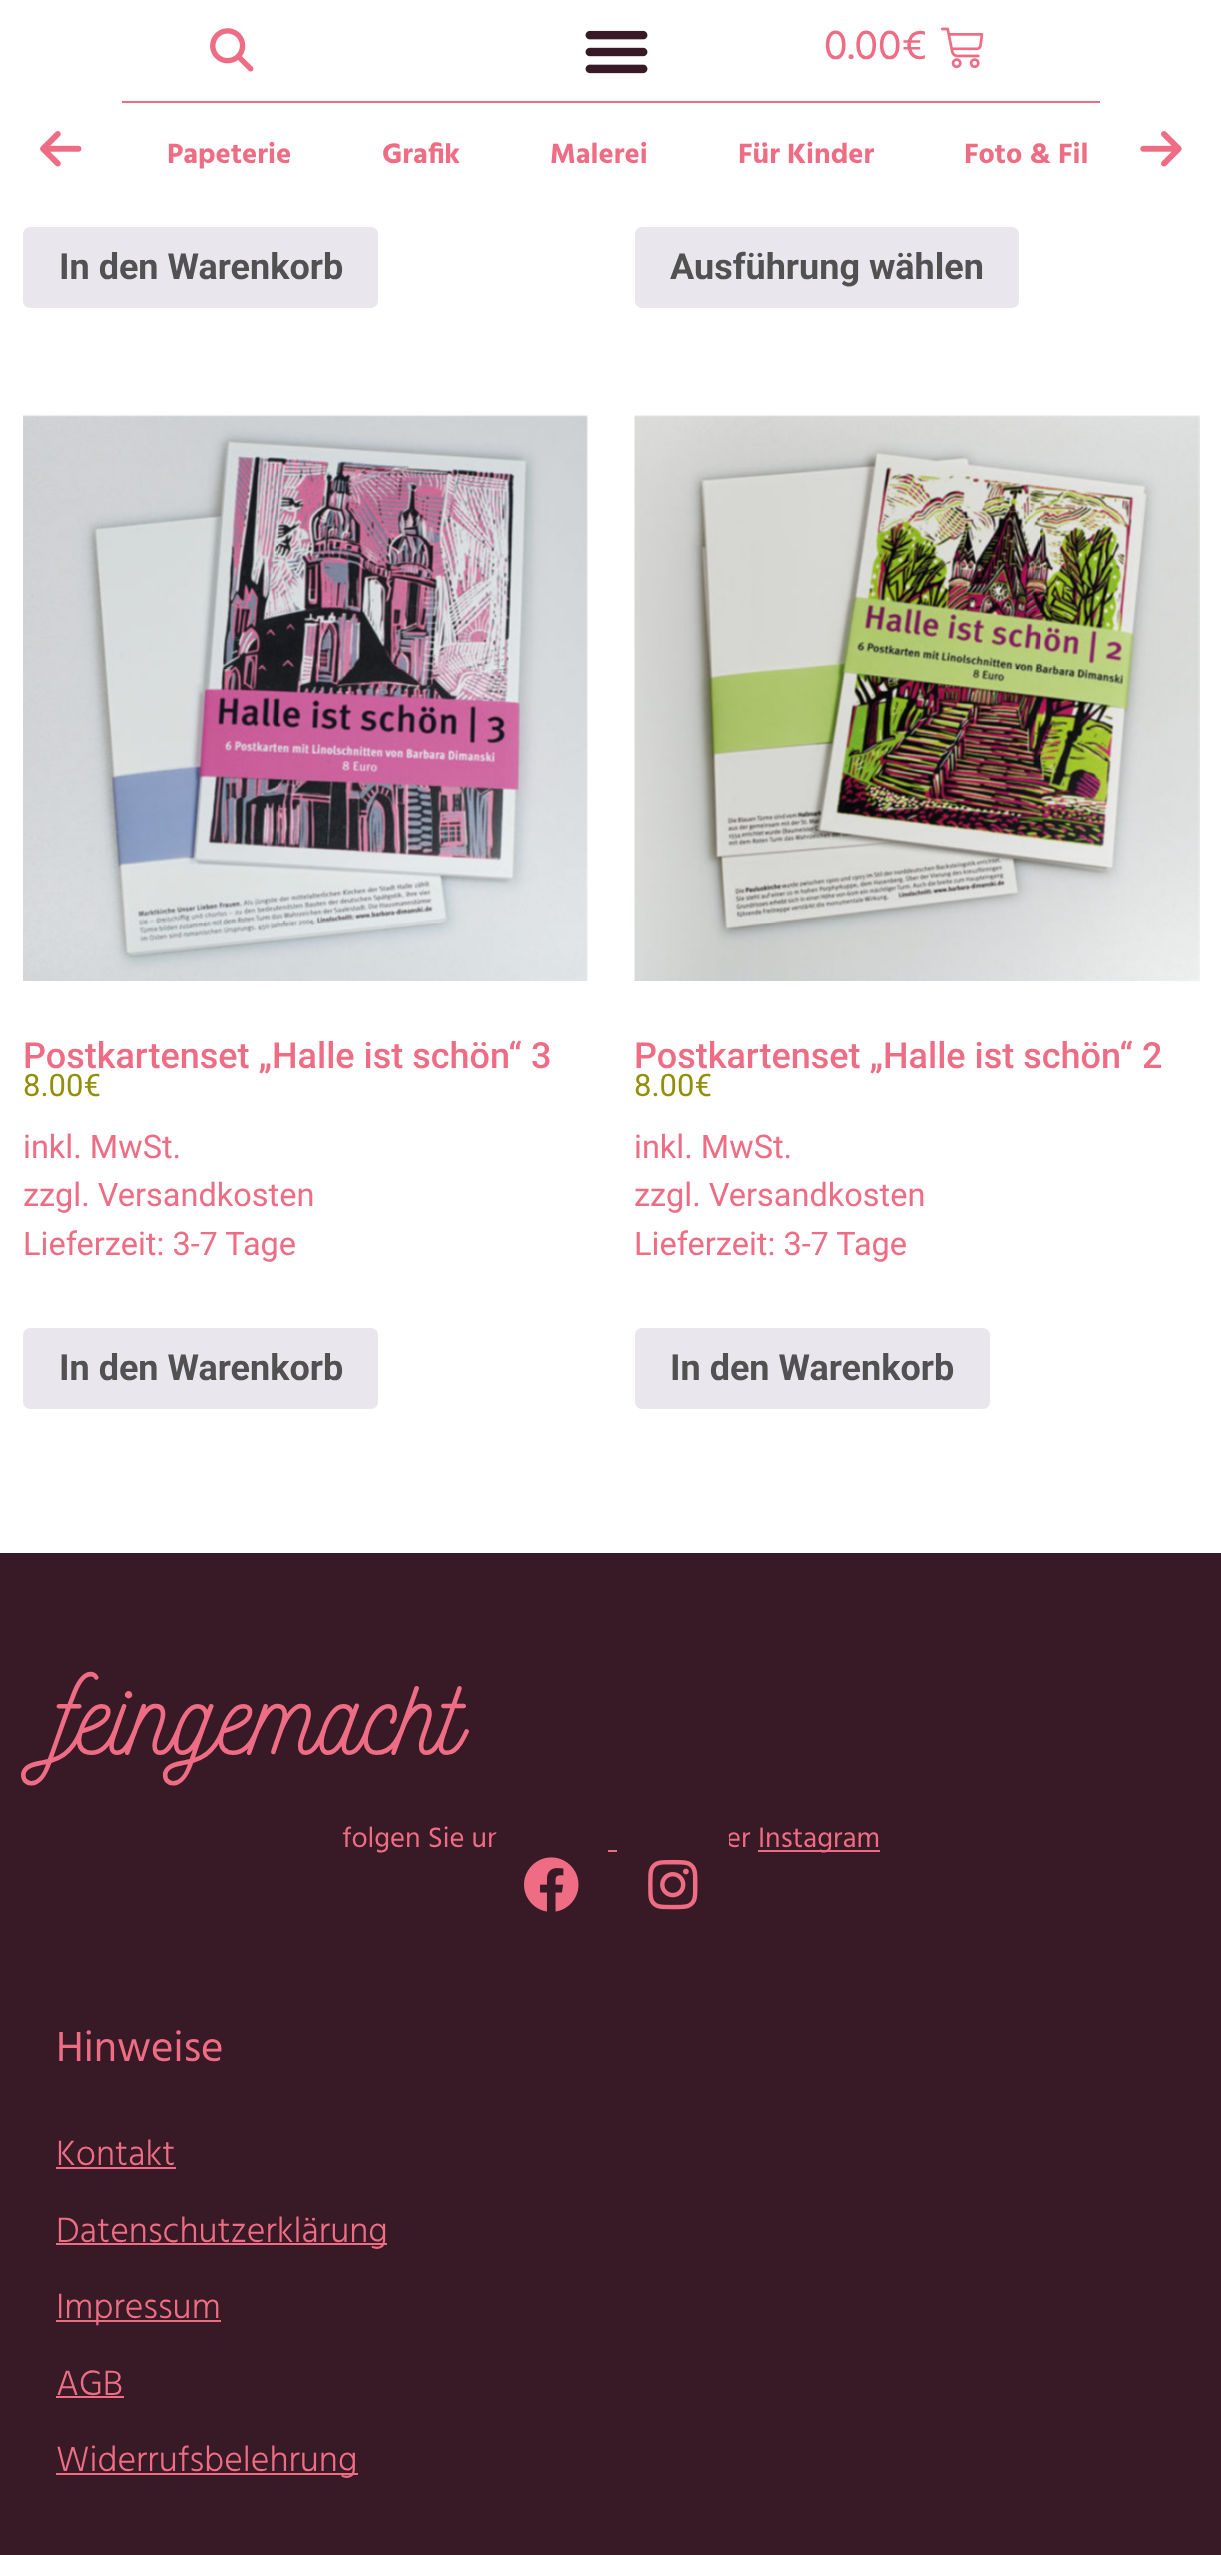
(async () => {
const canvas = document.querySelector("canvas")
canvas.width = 1221
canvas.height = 2555
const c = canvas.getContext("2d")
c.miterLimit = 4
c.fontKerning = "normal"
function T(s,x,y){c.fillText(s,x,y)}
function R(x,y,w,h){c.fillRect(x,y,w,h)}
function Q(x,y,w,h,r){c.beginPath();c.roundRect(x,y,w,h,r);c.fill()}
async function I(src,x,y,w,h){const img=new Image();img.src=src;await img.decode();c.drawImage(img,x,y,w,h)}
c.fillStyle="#fff"
R(0,0,1221,2555)
await I("1.png",210,28,44,44)
await I("2.png",585,30,63,44)
c.font="43px Hind"
c.fillStyle="#ee6d84"
T("0.00€",824,59)
await I("3.png",941,27,43,42)
await I("4.png",40,131,42,36)
R(122,101,978,2)
c.font="bold 28.75px Hind"
T("Papeterie",167,163)
T("Grafik",382,163)
T("Malerei",550,163)
T("Für Kinder",738,163)
T("Foto & Fil",964,163)
await I("5.png",1140,131,42,36)
c.fillStyle="#e9e6ed"
Q(23,227,355,81,7)
c.font="bold 36px Roboto"
c.fillStyle="#515151"
T("In den Warenkorb",59,279)
c.fillStyle="#e9e6ed"
Q(635,227,384,81,7)
c.fillStyle="#515151"
T("Ausführung wählen",670,279)
await I("6.png",23,415,565,566)
c.font="500 36px Roboto"
c.fillStyle="#ee6d84"
T("Postkartenset „Halle ist schön“ 3",23,1068)
c.font="31px Roboto"
c.fillStyle="#958e09"
T("8.00€",23,1096)
c.font="32.5px Roboto"
c.fillStyle="#ee6d84"
T("inkl. MwSt.",23,1158)
T("zzgl. Versandkosten",23,1206)
T("Lieferzeit: 3-7 Tage",23,1255)
c.fillStyle="#e9e6ed"
Q(23,1328,355,81,7)
c.font="bold 36px Roboto"
c.fillStyle="#515151"
T("In den Warenkorb",59,1380)
await I("7.png",634,415,566,566)
c.font="500 36px Roboto"
c.fillStyle="#ee6d84"
T("Postkartenset „Halle ist schön“ 2",634,1068)
c.font="31px Roboto"
c.fillStyle="#958e09"
T("8.00€",634,1096)
c.font="32.5px Roboto"
c.fillStyle="#ee6d84"
T("inkl. MwSt.",634,1158)
T("zzgl. Versandkosten",634,1206)
T("Lieferzeit: 3-7 Tage",634,1255)
c.fillStyle="#e9e6ed"
Q(635,1328,355,81,7)
c.font="bold 36px Roboto"
c.fillStyle="#515151"
T("In den Warenkorb",670,1380)
c.fillStyle="#381a26"
R(0,1553,1221,1002)
c.font="108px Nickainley"
c.fillStyle="#ee6d84"
T("feingemacht",56,1755)
c.font="28.75px Hind"
T("folgen Sie un",342,1847)
T("er",726,1847)
R(758,1850,122,2)
T("Instagram",758,1847)
R(608,1850,9,2)
c.fillStyle="#381a26"
Q(495,1827,113,113,11)
await I("8.png",524,1857,55,55)
Q(617,1827,112,113,11)
await I("9.png",648,1859,50,51)
c.font="43px Hind"
c.fillStyle="#ee6d84"
T("Hinweise",56,2061)
c.font="300 36px Hind"
T("Kontakt",56,2165)
R(56,2167,120,2)
R(56,2243,331,2)
T("Datenschutzerklärung",56,2242)
R(56,2320,165,2)
T("Impressum",56,2318)
T("AGB",56,2395)
R(56,2396,68,2)
R(56,2473,302,2)
T("Widerrufsbelehrung",56,2471)
})()
